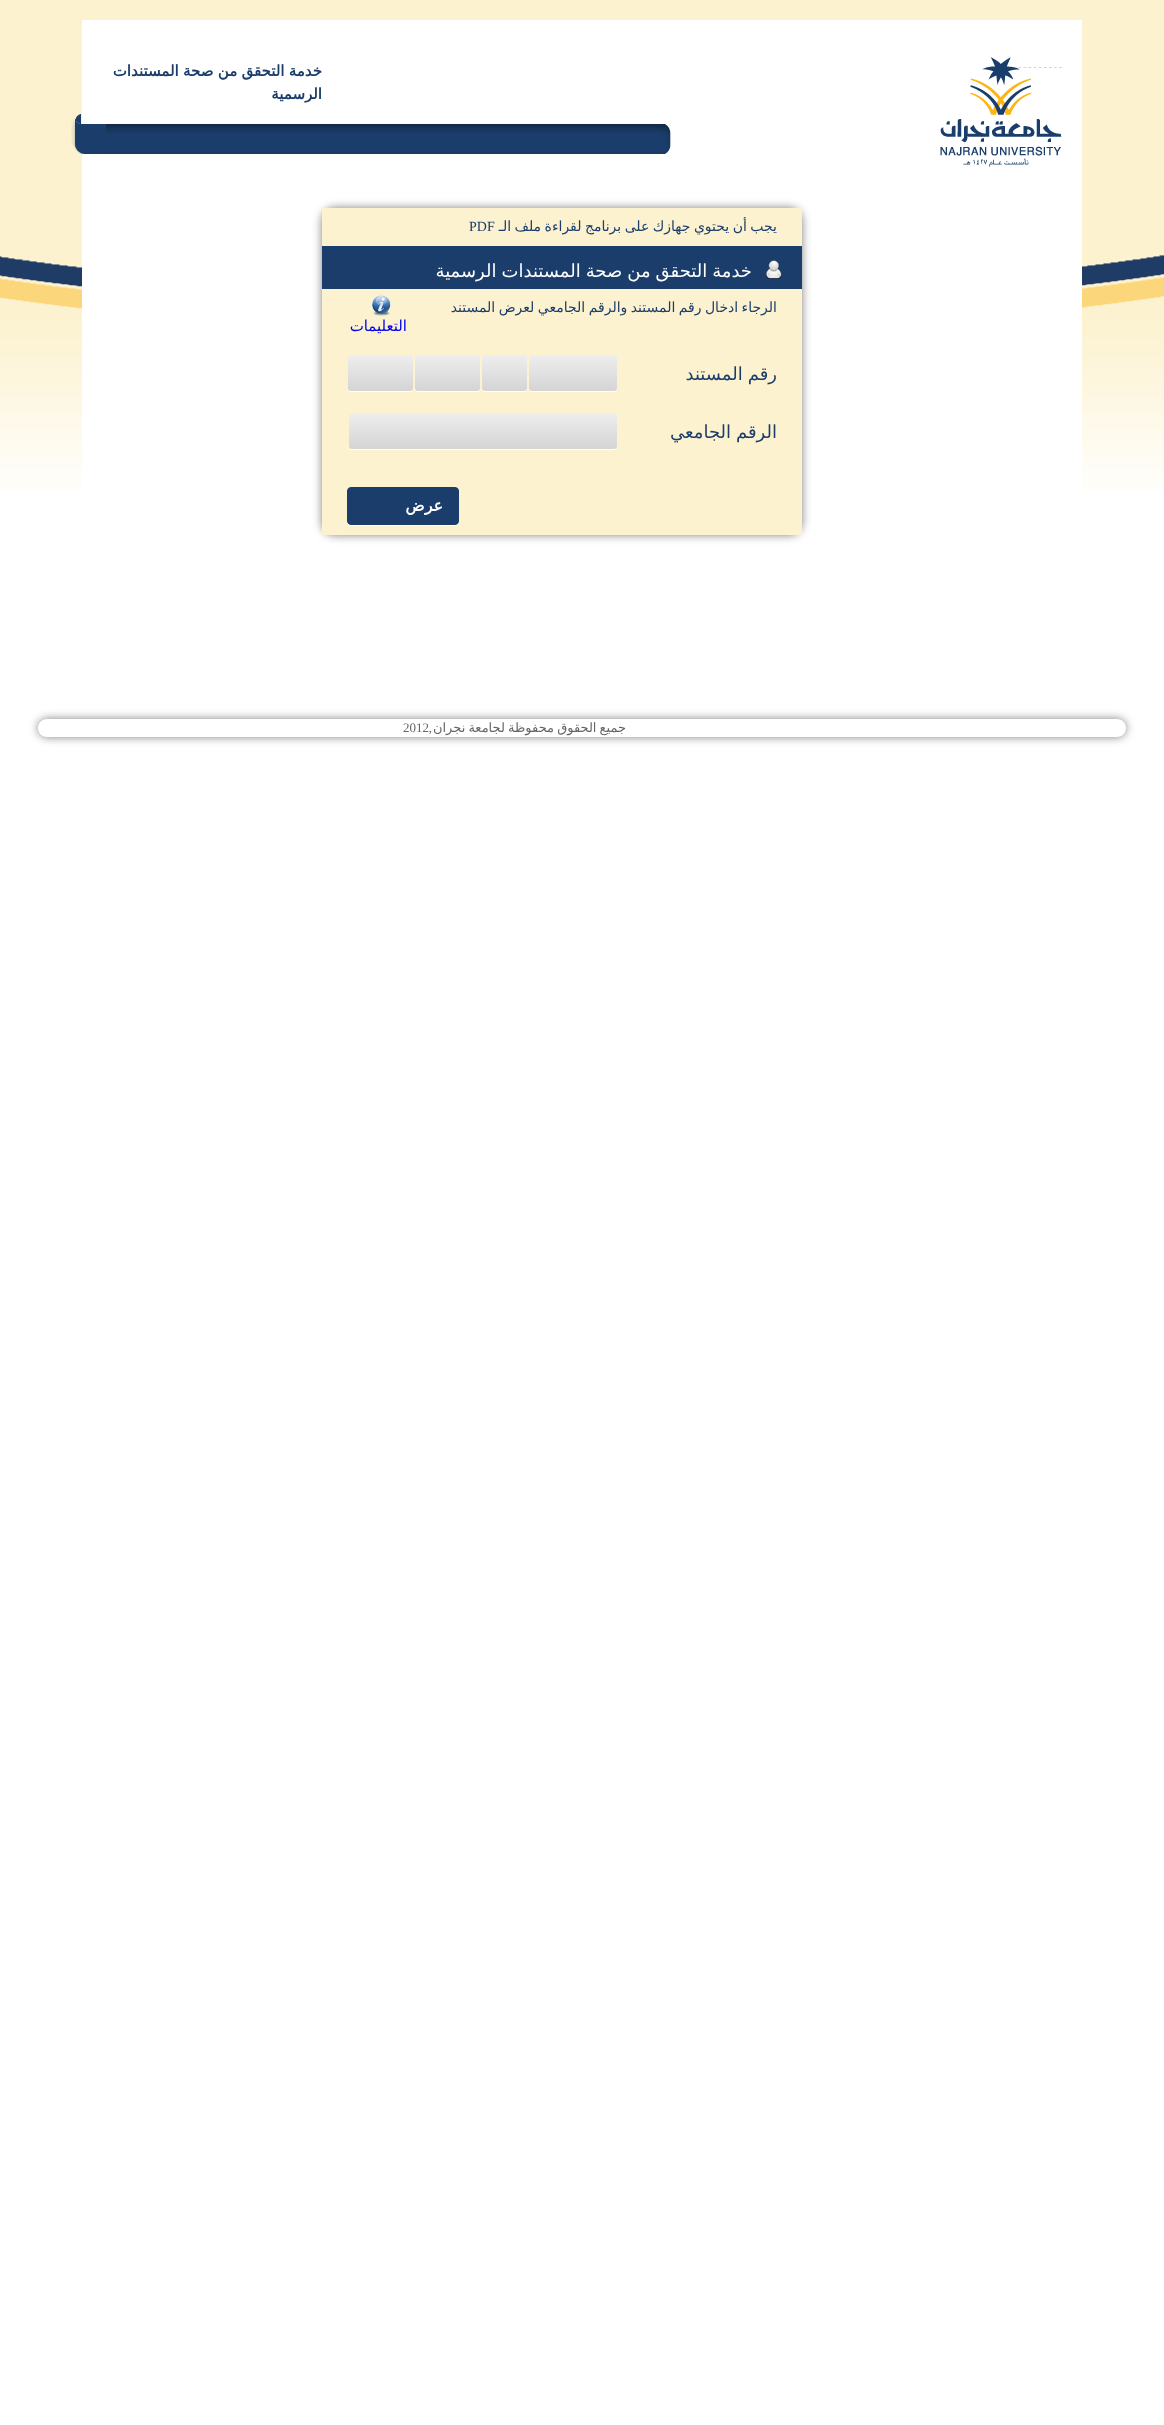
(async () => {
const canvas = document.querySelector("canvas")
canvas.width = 1164
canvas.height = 2425
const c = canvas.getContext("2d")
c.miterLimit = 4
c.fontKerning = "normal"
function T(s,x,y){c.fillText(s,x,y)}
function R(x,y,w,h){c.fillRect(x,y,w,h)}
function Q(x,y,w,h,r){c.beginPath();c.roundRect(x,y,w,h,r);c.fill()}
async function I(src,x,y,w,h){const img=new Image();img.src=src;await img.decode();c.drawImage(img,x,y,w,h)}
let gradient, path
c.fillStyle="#fff"
R(0,0,1164,2425)
await I("1.png",0,0,1164,491)
c.beginPath()
c.roundRect(82,20,1000,575,[0,0,10,10])
c.fill()
await I("2.png",940,57,122,111)
c.wordSpacing="-0.5px"
c.direction="rtl"
c.font="bold 15px DejaVu Sans"
c.fillStyle="#1b3d6b"
T("خدمة التحقق من صحة المستندات",322,76)
c.wordSpacing="0px"
T("الرسمية",322,99)
await I("3.png",106,124,565,30)
await I("4.png",71,114,35,40)
c.fillStyle="#00000080"
c.filter="blur(5px)"
c.beginPath()
c.roundRect(322,208,480,327,13)
c.fill()
c.filter="none"
c.fillStyle="#fcf2cf"
R(322,208,480,38)
c.wordSpacing="-1px"
c.font="14px DejaVu Sans"
c.fillStyle="#1b3d6b"
T("يجب أن يحتوي جهازك على برنامج لقراءة ملف الـ",777,231)
c.wordSpacing="0px"
c.direction="ltr"
c.font="14px Liberation Serif"
T("PDF",469,231)
R(322,246,480,43)
await I("5.png",766,260,16,19)
c.wordSpacing="-0.75px"
c.direction="rtl"
c.font="18px DejaVu Sans"
c.fillStyle="#fff"
T("خدمة التحقق من صحة المستندات الرسمية",752,277)
c.fillStyle="#fcf2cf"
R(322,289,480,246)
c.wordSpacing="-1px"
c.font="14px DejaVu Sans"
c.fillStyle="#1b3d6b"
T("الرجاء ادخال رقم المستند والرقم الجامعي لعرض المستند",777,312)
await I("6.png",372,295,19,21)
c.wordSpacing="0px"
c.font="15px DejaVu Sans"
c.fillStyle="#00e"
T("التعليمات",407,331)
c.wordSpacing="-0.75px"
c.font="18px DejaVu Sans"
c.fillStyle="#1b3d6b"
T("رقم المستند",777,380)
c.fillStyle="#fff"
c.filter="blur(0.5px)"
c.beginPath()
c.roundRect(529,356,88,36,3)
c.fill()
c.filter="none"
gradient = c.createLinearGradient(529,355,529,391)
gradient.addColorStop(0,"#eee")
gradient.addColorStop(1,"#d4d4d4")
c.fillStyle = gradient
Q(529,355,88,36,3)
c.fillStyle="#fff"
c.filter="blur(0.5px)"
c.beginPath()
c.roundRect(482,356,45,36,3)
c.fill()
c.filter="none"
gradient = c.createLinearGradient(482,355,482,391)
gradient.addColorStop(0,"#eee")
gradient.addColorStop(1,"#d4d4d4")
c.fillStyle = gradient
Q(482,355,45,36,3)
c.fillStyle="#fff"
c.filter="blur(0.5px)"
c.beginPath()
c.roundRect(415,356,65,36,3)
c.fill()
c.filter="none"
gradient = c.createLinearGradient(415,355,415,391)
gradient.addColorStop(0,"#eee")
gradient.addColorStop(1,"#d4d4d4")
c.fillStyle = gradient
Q(415,355,65,36,3)
c.fillStyle="#fff"
c.filter="blur(0.5px)"
c.beginPath()
c.roundRect(348,356,65,36,3)
c.fill()
c.filter="none"
gradient = c.createLinearGradient(348,355,348,391)
gradient.addColorStop(0,"#eee")
gradient.addColorStop(1,"#d4d4d4")
c.fillStyle = gradient
Q(348,355,65,36,3)
c.fillStyle="#1b3d6b"
T("الرقم الجامعي",777,438)
c.fillStyle="#fff"
c.filter="blur(0.5px)"
c.beginPath()
c.roundRect(349,414,268,36,3)
c.fill()
c.filter="none"
gradient = c.createLinearGradient(349,413,349,449)
gradient.addColorStop(0,"#eee")
gradient.addColorStop(1,"#d4d4d4")
c.fillStyle = gradient
Q(349,413,268,36,3)
c.fillStyle="#fff"
c.filter="blur(0.5px)"
c.beginPath()
c.roundRect(347,488,112,38,4)
c.fill()
c.filter="none"
c.fillStyle="#1b3d6b"
c.beginPath()
c.roundRect(347.5,487.5,111,37,3.5)
c.fill()
c.strokeStyle="#1b3d6b"
c.stroke()
c.wordSpacing="0px"
c.font="bold 16px DejaVu Sans"
c.fillStyle="#fff"
T("عرض",443,511)
c.save()
path = new Path2D("M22 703h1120v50h-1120zm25 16h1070c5 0 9 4 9 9c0 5-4 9-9 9h-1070c-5 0-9-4-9-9c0-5 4-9 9-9z")
c.clip(path,"evenodd")
c.fillStyle="#00000080"
c.filter="blur(5px)"
c.beginPath()
c.roundRect(38,719,1088,18,9)
c.fill()
c.filter="none"
c.restore()
c.wordSpacing="-1px"
c.font="13px DejaVu Sans"
c.fillStyle="#666"
T("جميع الحقوق محفوظة لجامعة نجران",626,732)
c.wordSpacing="0px"
c.font="13px Liberation Serif"
T(",",432,732)
c.direction="ltr"
T("2012",403,732)
})()
